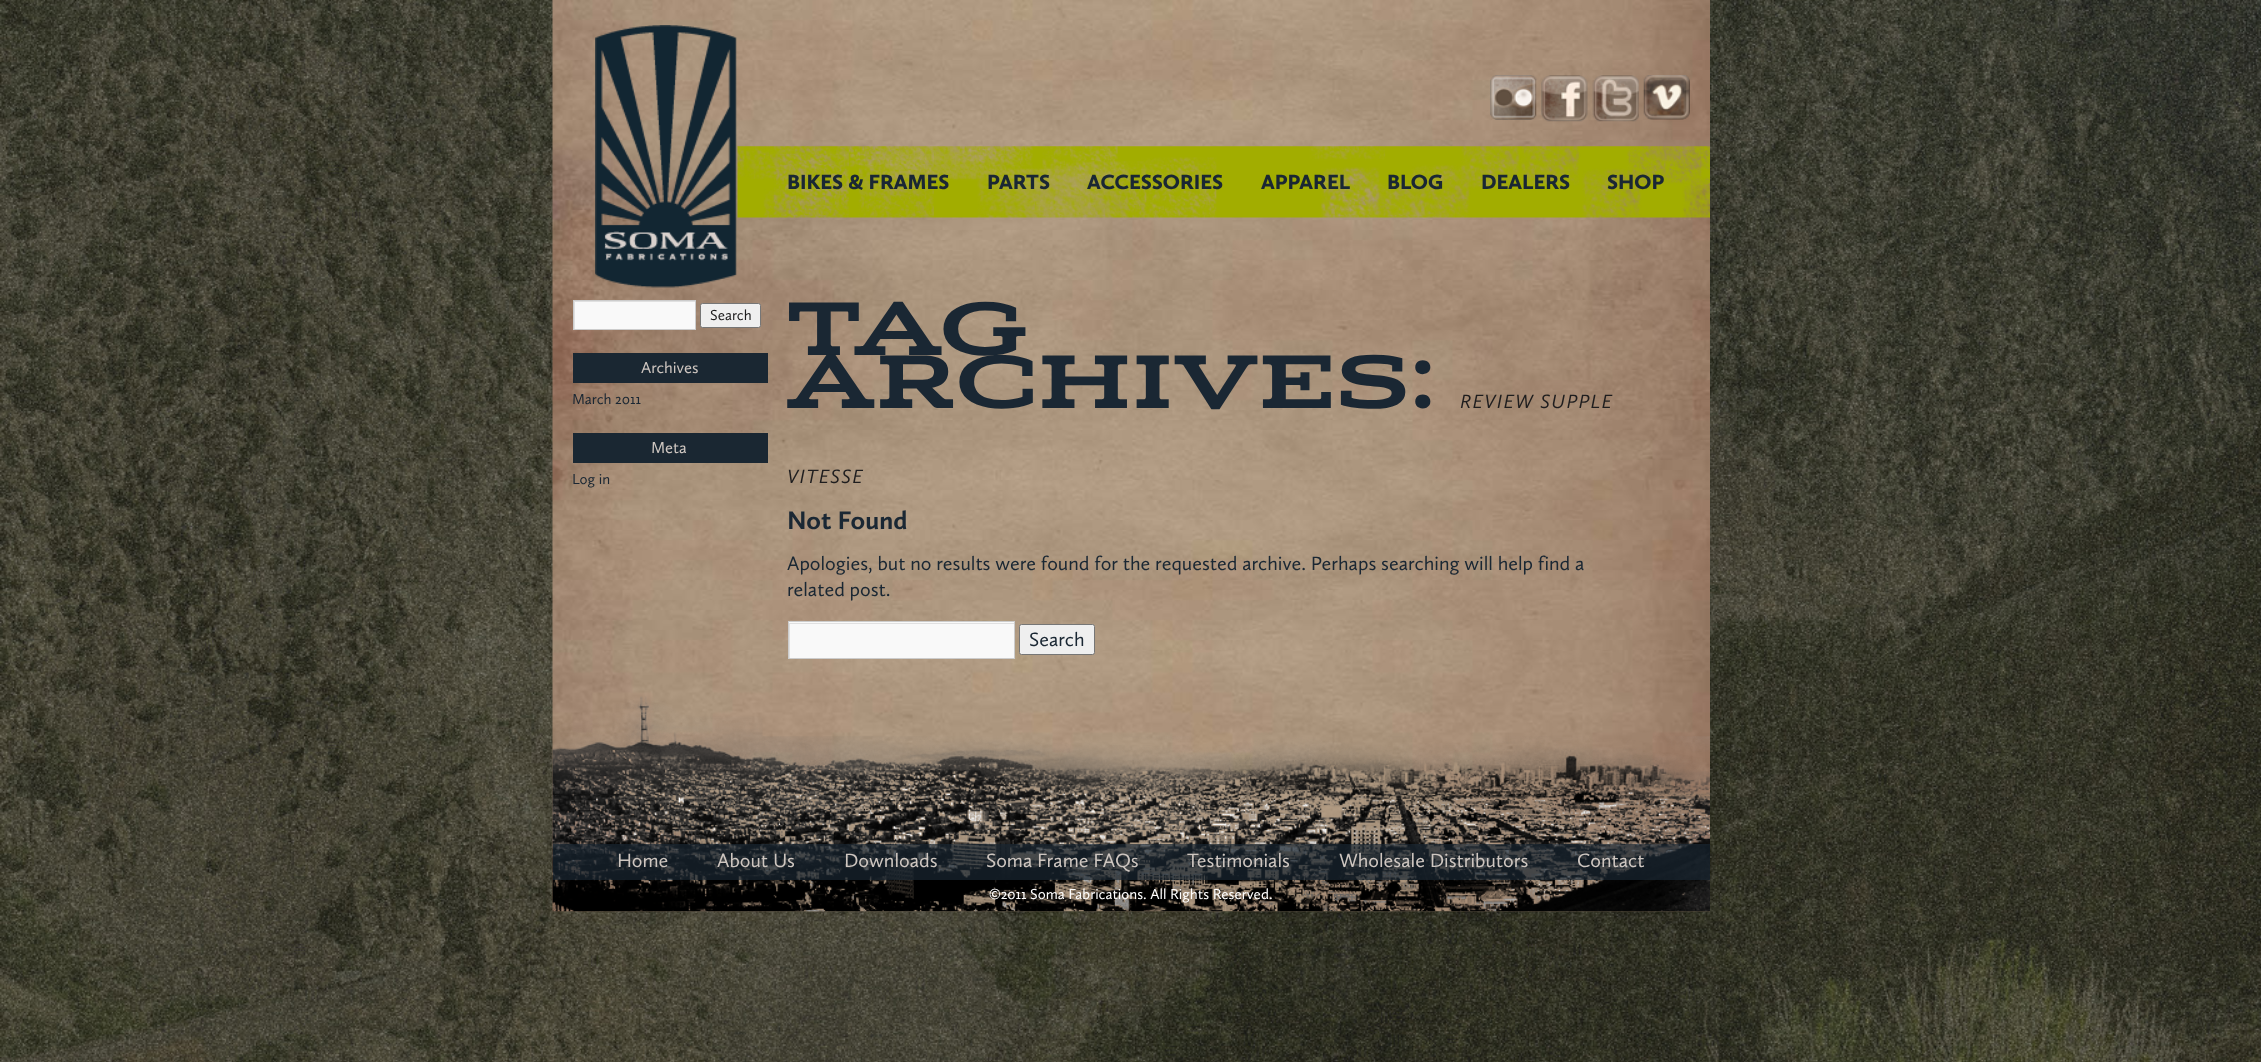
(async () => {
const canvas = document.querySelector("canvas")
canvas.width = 2261
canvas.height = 1062
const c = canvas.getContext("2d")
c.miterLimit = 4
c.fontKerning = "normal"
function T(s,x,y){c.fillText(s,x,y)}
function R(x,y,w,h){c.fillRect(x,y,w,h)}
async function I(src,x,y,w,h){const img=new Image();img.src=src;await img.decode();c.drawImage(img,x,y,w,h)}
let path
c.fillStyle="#fff"
R(0,0,2261,1062)
await I("1.png",0,0,2261,1062)
await I("2.png",552,0,1158,912)
await I("3.png",595,25,142,263)
await I("4.png",1490,75,47,45)
await I("5.png",1541,75,47,47)
await I("6.png",1592,75,47,47)
await I("7.png",1643,75,47,45)
await I("8.png",737,146,973,72)
c.font="900 21.25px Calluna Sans"
c.fillStyle="#1a2733"
T("BIKES & FRAMES",787,189)
T("PARTS",987,189)
T("ACCESSORIES",1087,189)
T("APPAREL",1261,189)
T("BLOG",1387,189)
T("DEALERS",1481,189)
T("SHOP",1607,189)
c.fillStyle="#f9f9f9"
R(575,302,120,27)
c.save()
c.beginPath()
c.rect(574,301,121,28)
c.clip()
c.fillStyle="#e0e0e0"
path = new Path2D("M450 178h369v274h-369zm125 124h121v28h-121z")
c.fill(path,"evenodd")
c.restore()
c.strokeStyle="#ccc"
c.strokeRect(573.5,300.5,122,29)
c.fillStyle="#efefef"
c.beginPath()
c.roundRect(700.5,303.5,60,24,2)
c.fill()
c.strokeStyle="#767676"
c.stroke()
c.font="15px Calluna Sans"
c.fillStyle="#1e1d1e"
T("Search",710,320)
c.fillStyle="#1a2732"
R(573,353,195,30)
c.font="16.5px Calluna Sans"
c.fillStyle="#cec6c0"
T("Archives",641,373)
c.font="15px Calluna Sans"
c.fillStyle="#1a2733"
T("March 2011",572,404)
c.fillStyle="#1a2732"
R(573,433,195,30)
c.font="16.5px Calluna Sans"
c.fillStyle="#cec6c0"
T("Meta",651,453)
c.font="15px Calluna Sans"
c.fillStyle="#1a2733"
T("Log in",572,484)
c.letterSpacing="1.25px"
c.font="500 75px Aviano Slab"
T("TAG",787,355)
T("ARCHIVES:",787,408)
c.font="italic 20px Calluna Sans"
c.fillStyle="#1e1d1e"
T("REVIEW SUPPLE",1460,408)
T("VITESSE",787,483)
c.letterSpacing="0px"
c.font="bold 26.25px Calluna Sans"
c.fillStyle="#1a2733"
T("Not Found",787,529)
c.font="20px Calluna Sans"
T("Apologies, but no results were found for the requested archive. Perhaps searching will help find a",787,570)
T("related post.",787,596)
c.fillStyle="#f9f9f9"
R(789,622,225,36)
c.save()
c.beginPath()
c.rect(789,623,225,35)
c.clip()
c.fillStyle="#e0e0e0"
path = new Path2D("M665 499h473v282h-473zm125 125h225v35h-225z")
c.fill(path,"evenodd")
c.restore()
c.strokeStyle="#ccc"
c.strokeRect(788.5,621.5,226,37)
c.fillStyle="#efefef"
c.beginPath()
c.roundRect(1019.5,624.5,75,30,2)
c.fill()
c.strokeStyle="#767676"
c.stroke()
c.fillStyle="#1a2733"
T("Search",1029,646)
await I("9.png",552,696,1158,216)
c.fillStyle="#1a2733b0"
R(553,844,1157,36)
c.fillStyle="#cec6c0"
T("Home",617,867)
T("About Us",717,867)
T("Downloads",844,867)
T("Soma Frame FAQs",986,867)
T("Testimonials",1187,867)
T("Wholesale Distributors",1339,867)
T("Contact",1577,867)
c.font="15px Calluna Sans"
c.fillStyle="#fff"
T("©2011 Soma Fabrications. All Rights Reserved.",989,899)
})()
